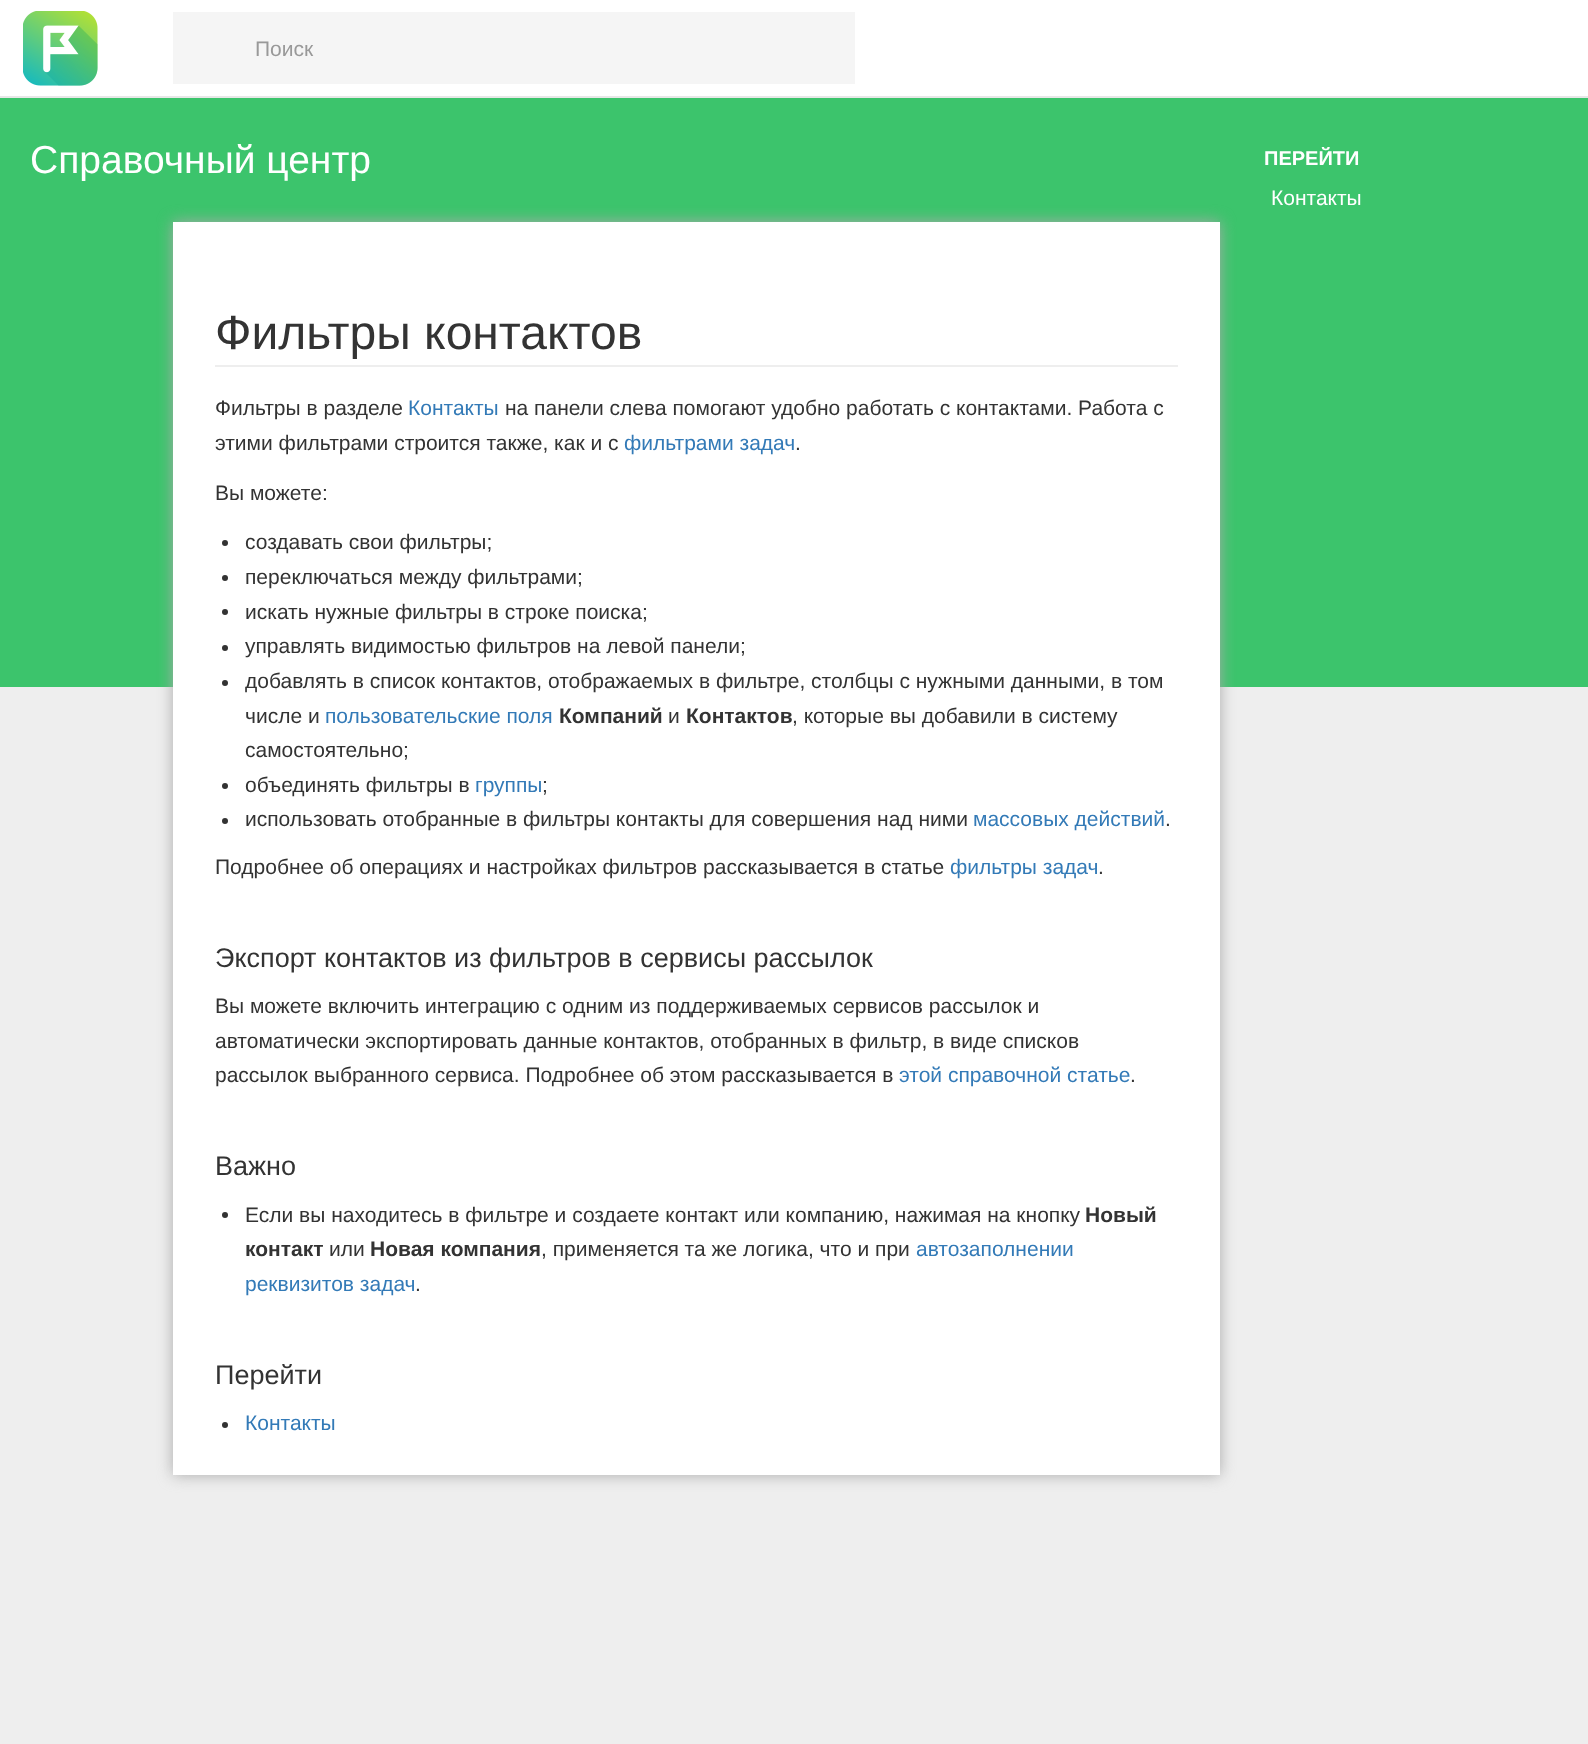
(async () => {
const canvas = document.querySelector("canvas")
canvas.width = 1588
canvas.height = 1744
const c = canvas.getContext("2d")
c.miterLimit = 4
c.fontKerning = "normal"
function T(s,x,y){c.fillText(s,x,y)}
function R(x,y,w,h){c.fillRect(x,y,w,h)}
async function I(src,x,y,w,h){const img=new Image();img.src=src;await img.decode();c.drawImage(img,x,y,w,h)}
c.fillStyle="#eee"
R(0,0,1588,1744)
c.fillStyle="#fff"
R(0,0,1588,96)
c.fillStyle="#e7e7e7"
R(0,96,1588,2)
await I("1.png",23,11,75,75)
c.fillStyle="#f5f5f5"
R(173,12,682,72)
c.font="21px Liberation Sans"
c.fillStyle="#999"
T("Поиск",255,56)
c.fillStyle="#3cc46c"
R(0,98,1588,589)
c.font="39px Liberation Sans"
c.fillStyle="#fff"
T("Справочный центр",30,173)
c.font="bold 20px Liberation Sans"
T("ПЕРЕЙТИ",1264,165)
c.font="21px Liberation Sans"
T("Контакты",1271,205)
c.fillStyle="#aaa"
c.filter="blur(7.5px)"
c.beginPath()
c.rect(173,222,1047,1253)
c.fill()
c.filter="none"
c.fillStyle="#fff"
R(173,222,1047,1253)
c.fillStyle="#eee"
R(215,365,963,2)
c.font="48px Liberation Sans"
c.fillStyle="#333"
T("Фильтры контактов",215,349)
c.font="21px Liberation Sans"
T("Фильтры в разделе",215,415)
c.fillStyle="#337ab7"
T("Контакты",408,415)
c.fillStyle="#333"
T("на панели слева помогают удобно работать с контактами. Работа с",505,415)
T("этими фильтрами строится также, как и с",215,450)
c.fillStyle="#337ab7"
T("фильтрами задач",624,450)
c.fillStyle="#333"
T(".",795,450)
T("Вы можете:",215,500)
c.beginPath()
c.arc(225,543,3,0,7)
c.fill()
T("создавать свои фильтры;",245,549)
c.beginPath()
c.arc(225,578,3,0,7)
c.fill()
T("переключаться между фильтрами;",245,584)
c.beginPath()
c.arc(225,612,3,0,7)
c.fill()
T("искать нужные фильтры в строке поиска;",245,619)
c.beginPath()
c.arc(225,648,3,0,7)
c.fill()
T("управлять видимостью фильтров на левой панели;",245,653)
c.beginPath()
c.arc(225,683,3,0,7)
c.fill()
T("добавлять в список контактов, отображаемых в фильтре, столбцы с нужными данными, в том",245,688)
T("числе и",245,723)
c.fillStyle="#337ab7"
T("пользовательские поля",325,723)
c.font="bold 21px Liberation Sans"
c.fillStyle="#333"
T("Компаний",559,723)
c.font="21px Liberation Sans"
T("и",668,723)
c.font="bold 21px Liberation Sans"
T("Контактов",686,723)
c.font="21px Liberation Sans"
T(", которые вы добавили в систему",792,723)
T("самостоятельно;",245,757)
c.beginPath()
c.arc(225,786,3,0,7)
c.fill()
T("объединять фильтры в",245,792)
c.fillStyle="#337ab7"
T("группы",475,792)
c.fillStyle="#333"
T(";",542,792)
c.beginPath()
c.arc(225,821,3,0,7)
c.fill()
T("использовать отобранные в фильтры контакты для совершения над ними",245,826)
c.fillStyle="#337ab7"
T("массовых действий",973,826)
c.fillStyle="#333"
T(".",1165,826)
T("Подробнее об операциях и настройках фильтров рассказывается в статье",215,874)
c.fillStyle="#337ab7"
T("фильтры задач",950,874)
c.fillStyle="#333"
T(".",1098,874)
c.font="27px Liberation Sans"
T("Экспорт контактов из фильтров в сервисы рассылок",215,967)
c.font="21px Liberation Sans"
T("Вы можете включить интеграцию с одним из поддерживаемых сервисов рассылок и",215,1013)
T("автоматически экспортировать данные контактов, отобранных в фильтр, в виде списков",215,1048)
T("рассылок выбранного сервиса. Подробнее об этом рассказывается в",215,1082)
c.fillStyle="#337ab7"
T("этой справочной статье",899,1082)
c.fillStyle="#333"
T(".",1130,1082)
c.font="27px Liberation Sans"
T("Важно",215,1175)
c.beginPath()
c.arc(225,1215,3,0,7)
c.fill()
c.font="21px Liberation Sans"
T("Если вы находитесь в фильтре и создаете контакт или компанию, нажимая на кнопку",245,1222)
c.font="bold 21px Liberation Sans"
T("Новый",1085,1222)
T("контакт",245,1256)
c.font="21px Liberation Sans"
T("или",329,1256)
c.font="bold 21px Liberation Sans"
T("Новая компания",370,1256)
c.font="21px Liberation Sans"
T(", применяется та же логика, что и при",541,1256)
c.fillStyle="#337ab7"
T("автозаполнении",916,1256)
T("реквизитов задач",245,1291)
c.fillStyle="#333"
T(".",415,1291)
c.font="27px Liberation Sans"
T("Перейти",215,1384)
c.beginPath()
c.arc(225,1425,3,0,7)
c.fill()
c.font="21px Liberation Sans"
c.fillStyle="#337ab7"
T("Контакты",245,1430)
})()
